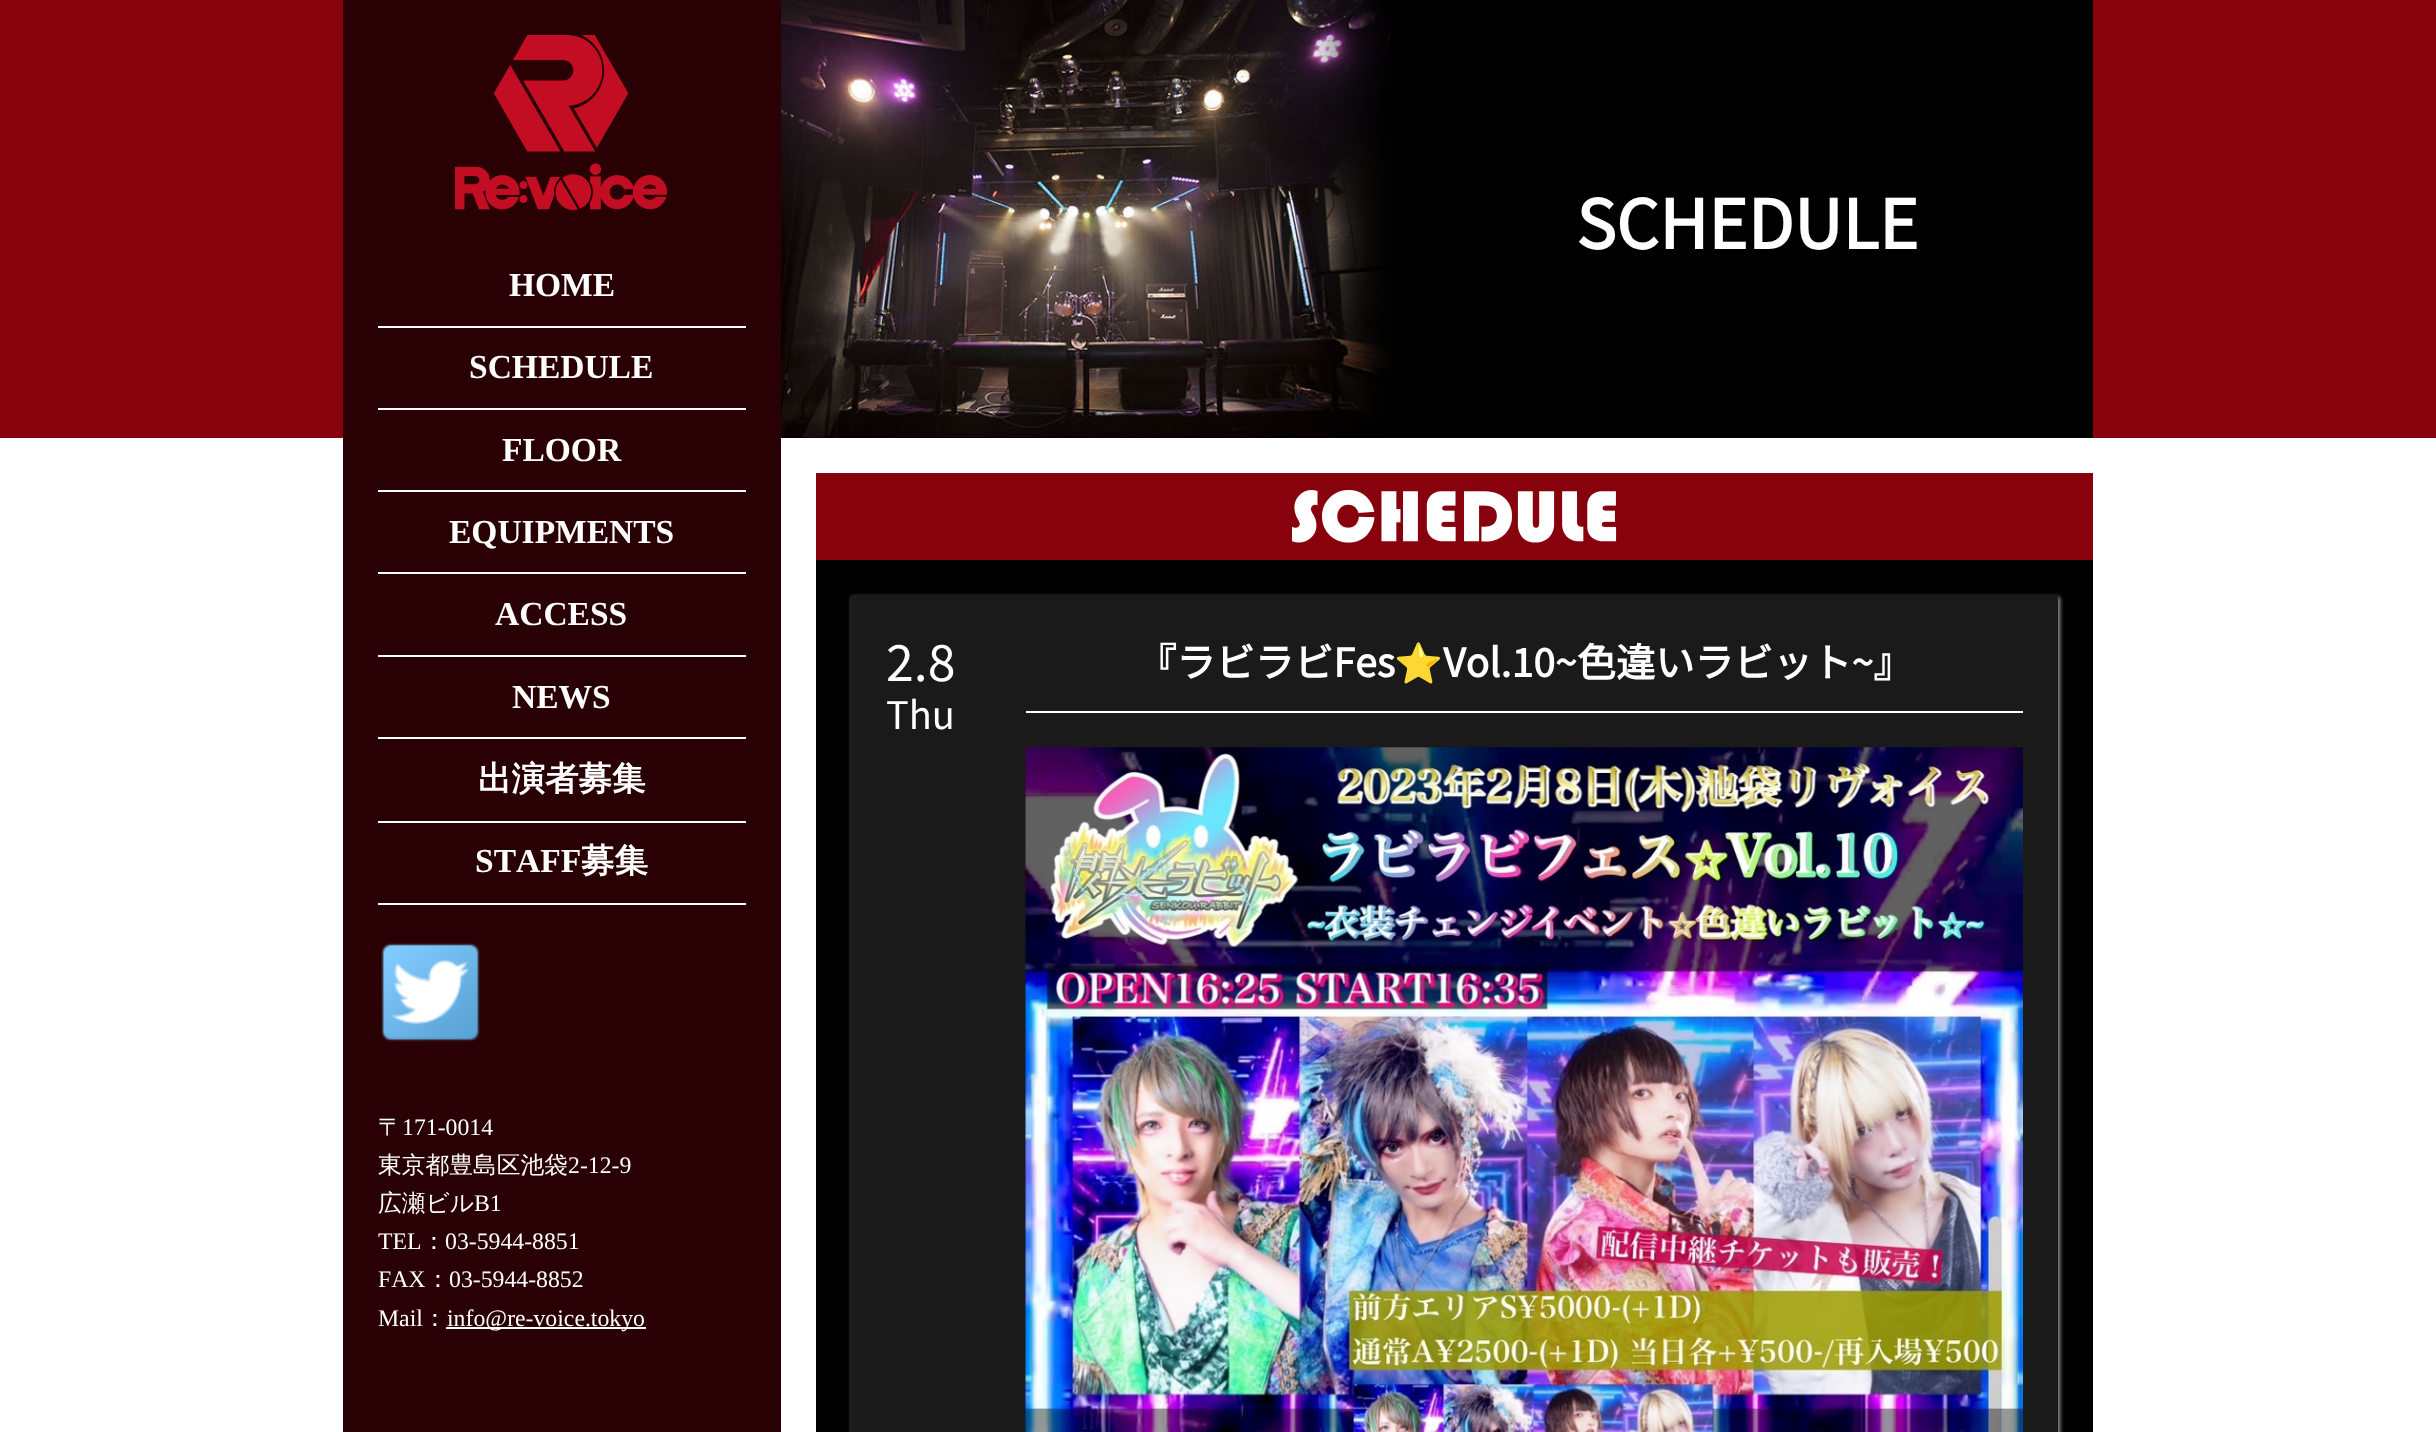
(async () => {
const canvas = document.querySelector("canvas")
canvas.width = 2436
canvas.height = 1432
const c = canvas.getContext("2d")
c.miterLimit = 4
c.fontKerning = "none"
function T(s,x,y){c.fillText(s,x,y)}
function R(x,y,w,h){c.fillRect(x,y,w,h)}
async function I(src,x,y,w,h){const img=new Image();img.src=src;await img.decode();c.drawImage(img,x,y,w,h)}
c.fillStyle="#fff"
R(0,0,2436,1432)
c.fillStyle="#87020d"
R(0,0,2436,438)
c.fillStyle="#290104"
R(343,0,438,1432)
await I("1.png",455,35,213,175)
c.fillStyle="#fff"
R(378,326,368,2)
c.font="bold 33.5px Liberation Serif"
T("HOME",509,296)
R(378,408,368,2)
T("SCHEDULE",469,378)
R(378,490,368,2)
T("FLOOR",502,461)
R(378,572,368,2)
T("EQUIPMENTS",449,543)
R(378,655,368,2)
T("ACCESS",495,625)
R(378,737,368,2)
T("NEWS",512,708)
R(378,821,368,2)
c.font="bold 33.5px WenQuanYi Zen Hei"
T("出演者募集",478,790)
R(378,903,368,2)
c.font="bold 33.5px Liberation Serif"
T("STAFF",475,872)
c.font="bold 33.5px WenQuanYi Zen Hei"
T("募集",581,872)
await I("2.png",381,943,99,99)
c.font="500 23.75px WenQuanYi Zen Hei"
T("〒",378,1135)
c.font="23.75px Liberation Serif"
T("171-0014",402,1135)
c.font="500 23.75px WenQuanYi Zen Hei"
T("東京都豊島区池袋",378,1173)
c.font="23.75px Liberation Serif"
T("2-12-9",568,1173)
c.font="500 23.75px WenQuanYi Zen Hei"
T("広瀬ビル",378,1211)
c.font="23.75px Liberation Serif"
T("B1",474,1211)
T("TEL",378,1249)
c.font="500 23.75px WenQuanYi Zen Hei"
T("：",422,1249)
c.font="23.75px Liberation Serif"
T("03-5944-8851",445,1249)
T("FAX",378,1287)
c.font="500 23.75px WenQuanYi Zen Hei"
T("：",426,1287)
c.font="23.75px Liberation Serif"
T("03-5944-8852",449,1287)
T("Mail",378,1326)
c.font="500 23.75px WenQuanYi Zen Hei"
T("：",423,1326)
R(446,1327,200,2)
c.font="23.75px Liberation Serif"
T("info@re-voice.tokyo",447,1326)
c.fillStyle="#000"
R(781,0,1312,438)
await I("3.png",781,0,612,438)
c.font="bold 67.25px Noto Sans JP"
c.fillStyle="#fff"
T("SCHEDULE",1576,249)
c.fillStyle="#000"
R(816,560,1277,872)
c.fillStyle="#87020d"
R(816,473,1277,87)
await I("4.png",1292,490,325,53)
c.fillStyle="#999"
c.filter="blur(2px)"
c.beginPath()
c.rect(852,597,1208,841)
c.fill()
c.filter="none"
c.fillStyle="#1a1a1a"
R(851,595,1207,837)
c.font="100 50px Noto Sans JP"
c.fillStyle="#fff"
T("2.8",886,681)
c.font="100 38px Noto Sans JP"
T("Thu",886,729)
R(1026,711,997,2)
c.font="bold 39.25px Noto Sans JP"
T("『ラビラビFes",1137,677)
c.font="bold 39.25px Noto Color Emoji"
T("⭐",1394,677)
c.font="bold 39.25px Noto Sans JP"
T("Vol.10~色違いラビット~』",1443,677)
await I("5.png",1025,747,998,685)
})()
